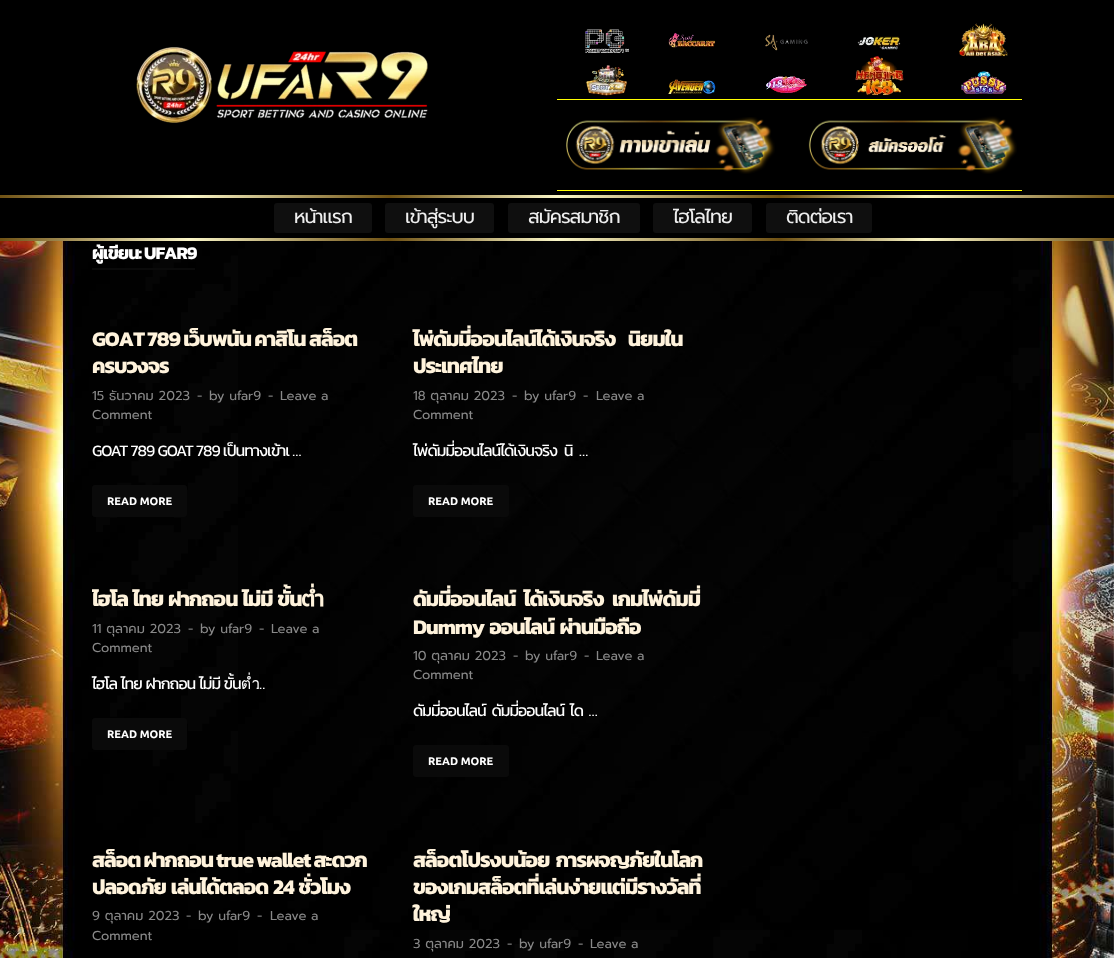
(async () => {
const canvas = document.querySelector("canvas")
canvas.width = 1114
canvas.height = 958
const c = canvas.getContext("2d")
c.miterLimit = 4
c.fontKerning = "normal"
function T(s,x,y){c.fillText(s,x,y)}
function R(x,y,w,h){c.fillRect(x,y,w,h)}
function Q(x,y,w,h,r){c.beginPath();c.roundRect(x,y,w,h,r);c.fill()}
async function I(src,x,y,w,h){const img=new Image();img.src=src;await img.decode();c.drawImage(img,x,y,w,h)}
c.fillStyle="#fff"
R(0,0,1114,958)
await I("1.png",0,241,1114,717)
c.fillStyle="#000"
R(0,0,1114,195)
await I("2.png",136,47,292,76)
await I("3.png",585,23,423,73)
c.save()
c.beginPath()
c.rect(557,20,465,171)
c.clip()
c.strokeStyle="#fffe02"
c.strokeRect(542.5,99.5,494,91)
c.restore()
await I("4.png",566,117,209,57)
await I("5.png",808,116,209,58)
R(0,198,1114,40)
await I("6.png",0,195,1114,46)
c.fillStyle="#0f0f0f"
Q(274,203,98,30,3)
c.letterSpacing="-1px"
c.font="19px Prompt"
c.fillStyle="#eee"
T("หน้าแรก",294,223)
c.fillStyle="#0f0f0f"
Q(385,203,109,30,3)
c.fillStyle="#eee"
T("เข้าสู่ระบบ",405,223)
c.fillStyle="#0f0f0f"
Q(508,203,132,30,3)
c.fillStyle="#eee"
T("สมัครสมาชิก",528,223)
c.fillStyle="#0f0f0f"
Q(653,203,99,30,3)
c.fillStyle="#eee"
T("ไฮโลไทย",673,223)
c.fillStyle="#0f0f0f"
Q(766,203,106,30,3)
c.fillStyle="#eee"
T("ติดต่อเรา",786,223)
c.fillStyle="#00000070"
R(238,241,775,689)
c.font="bold 18px Kanit"
c.fillStyle="#fff"
T("ผู้เขียน:",92,259)
c.fillStyle="#0a0a0a"
R(92,268,103,2)
c.fillStyle="#fff"
T("UFAR9",144,259)
c.font="bold 21px Kanit"
c.fillStyle="#fff3dc"
T("GOAT 789 เว็บพนัน คาสิโน สล็อต",92,346)
T("ครบวงจร",92,373)
c.letterSpacing="0px"
c.font="13px Prompt"
c.fillStyle="#888"
T("15 ธันวาคม 2023",92,400)
T("-",197,400)
T("by ufar9",209,400)
T("-",268,400)
T("Leave a",280,400)
T("Comment",92,419)
c.letterSpacing="-1px"
c.wordSpacing="0.5px"
c.font="16px Kanit"
c.fillStyle="#fff"
T("GOAT 789 GOAT 789 เป็นทางเข้าเ …",92,456)
c.fillStyle="#0a0a0a"
Q(92,485,95,32,3)
c.letterSpacing="0px"
c.wordSpacing="0px"
c.font="bold 11px Ubuntu"
c.fillStyle="#fff"
T("READ MORE",107,505)
c.letterSpacing="-1px"
c.wordSpacing="9px"
c.font="bold 21px Kanit"
c.fillStyle="#fff3dc"
T("ไพ่ดัมมี่ออนไลน์ได้เงินจริง นิยมใน",413,346)
c.wordSpacing="0px"
T("ประเทศไทย",413,373)
c.letterSpacing="0px"
c.font="13px Prompt"
c.fillStyle="#888"
T("18 ตุลาคม 2023",413,400)
T("-",512,400)
T("by ufar9",524,400)
T("-",583,400)
T("Leave a",596,400)
T("Comment",413,419)
c.letterSpacing="-1px"
c.wordSpacing="4px"
c.font="16px Kanit"
c.fillStyle="#fff"
T("ไพ่ดัมมี่ออนไลน์ได้เงินจริง นิ …",413,456)
c.fillStyle="#0a0a0a"
Q(413,485,96,32,3)
c.letterSpacing="0px"
c.wordSpacing="0px"
c.font="bold 11px Ubuntu"
c.fillStyle="#fff"
T("READ MORE",428,505)
c.save()
c.beginPath()
c.rect(92,307,610,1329)
c.clip()
c.letterSpacing="-1px"
c.wordSpacing="1.5px"
c.font="bold 21px Kanit"
c.fillStyle="#fff3dc"
T("ไฮโล ไทย ฝากถอน ไม่มี ขั้นต่ำ",92,606)
c.restore()
c.font="13px Prompt"
c.fillStyle="#888"
T("11 ตุลาคม 2023",92,633)
T("-",188,633)
T("by ufar9",200,633)
T("-",259,633)
T("Leave a",271,633)
T("Comment",92,652)
c.letterSpacing="-1px"
c.wordSpacing="1px"
c.font="16px Kanit"
c.fillStyle="#fff"
T("ไฮโล ไทย ฝากถอน ไม่มี ขั้นต่ำ",92,689)
c.wordSpacing="0px"
T("…",256,689)
c.fillStyle="#0a0a0a"
Q(92,718,95,32,3)
c.letterSpacing="0px"
c.font="bold 11px Ubuntu"
c.fillStyle="#fff"
T("READ MORE",107,738)
c.letterSpacing="-1px"
c.wordSpacing="5px"
c.font="bold 21px Kanit"
c.fillStyle="#fff3dc"
T("ดัมมี่ออนไลน์ ได้เงินจริง เกมไพ่ดัมมี่",413,606)
c.wordSpacing="2px"
T("Dummy ออนไลน์ ผ่านมือถือ",413,634)
c.letterSpacing="0px"
c.wordSpacing="0px"
c.font="13px Prompt"
c.fillStyle="#888"
T("10 ตุลาคม 2023",413,660)
T("-",513,660)
T("by ufar9",525,660)
T("-",584,660)
T("Leave a",596,660)
T("Comment",413,679)
c.letterSpacing="-1px"
c.wordSpacing="3px"
c.font="16px Kanit"
c.fillStyle="#fff"
T("ดัมมี่ออนไลน์ ดัมมี่ออนไลน์ ได …",413,716)
c.fillStyle="#0a0a0a"
Q(413,745,96,32,3)
c.letterSpacing="0px"
c.wordSpacing="0px"
c.font="bold 11px Ubuntu"
c.fillStyle="#fff"
T("READ MORE",428,765)
c.letterSpacing="-1px"
c.font="bold 21px Kanit"
c.fillStyle="#fff3dc"
T("สล็อต ฝากถอน true wallet สะดวก",92,867)
c.wordSpacing="1.5px"
T("ปลอดภัย เล่นได้ตลอด 24 ชั่วโมง",92,894)
c.letterSpacing="0px"
c.wordSpacing="0px"
c.font="13px Prompt"
c.fillStyle="#888"
T("9 ตุลาคม 2023",92,920)
T("-",186,920)
T("by ufar9",198,920)
T("-",257,920)
T("Leave a",270,920)
T("Comment",92,940)
c.letterSpacing="-1px"
c.wordSpacing="3px"
c.font="bold 21px Kanit"
c.fillStyle="#fff3dc"
T("สล็อตโปรงบน้อย การผจญภัยในโลก",413,867)
c.wordSpacing="0px"
T("ของเกมสล็อตที่เล่นง่ายแต่มีรางวัลที่",413,894)
T("ใหญ่",413,921)
c.letterSpacing="0px"
c.font="13px Prompt"
c.fillStyle="#888"
T("3 ตุลาคม 2023",413,948)
T("-",507,948)
T("by ufar9",519,948)
T("-",578,948)
T("Leave a",590,948)
})()
